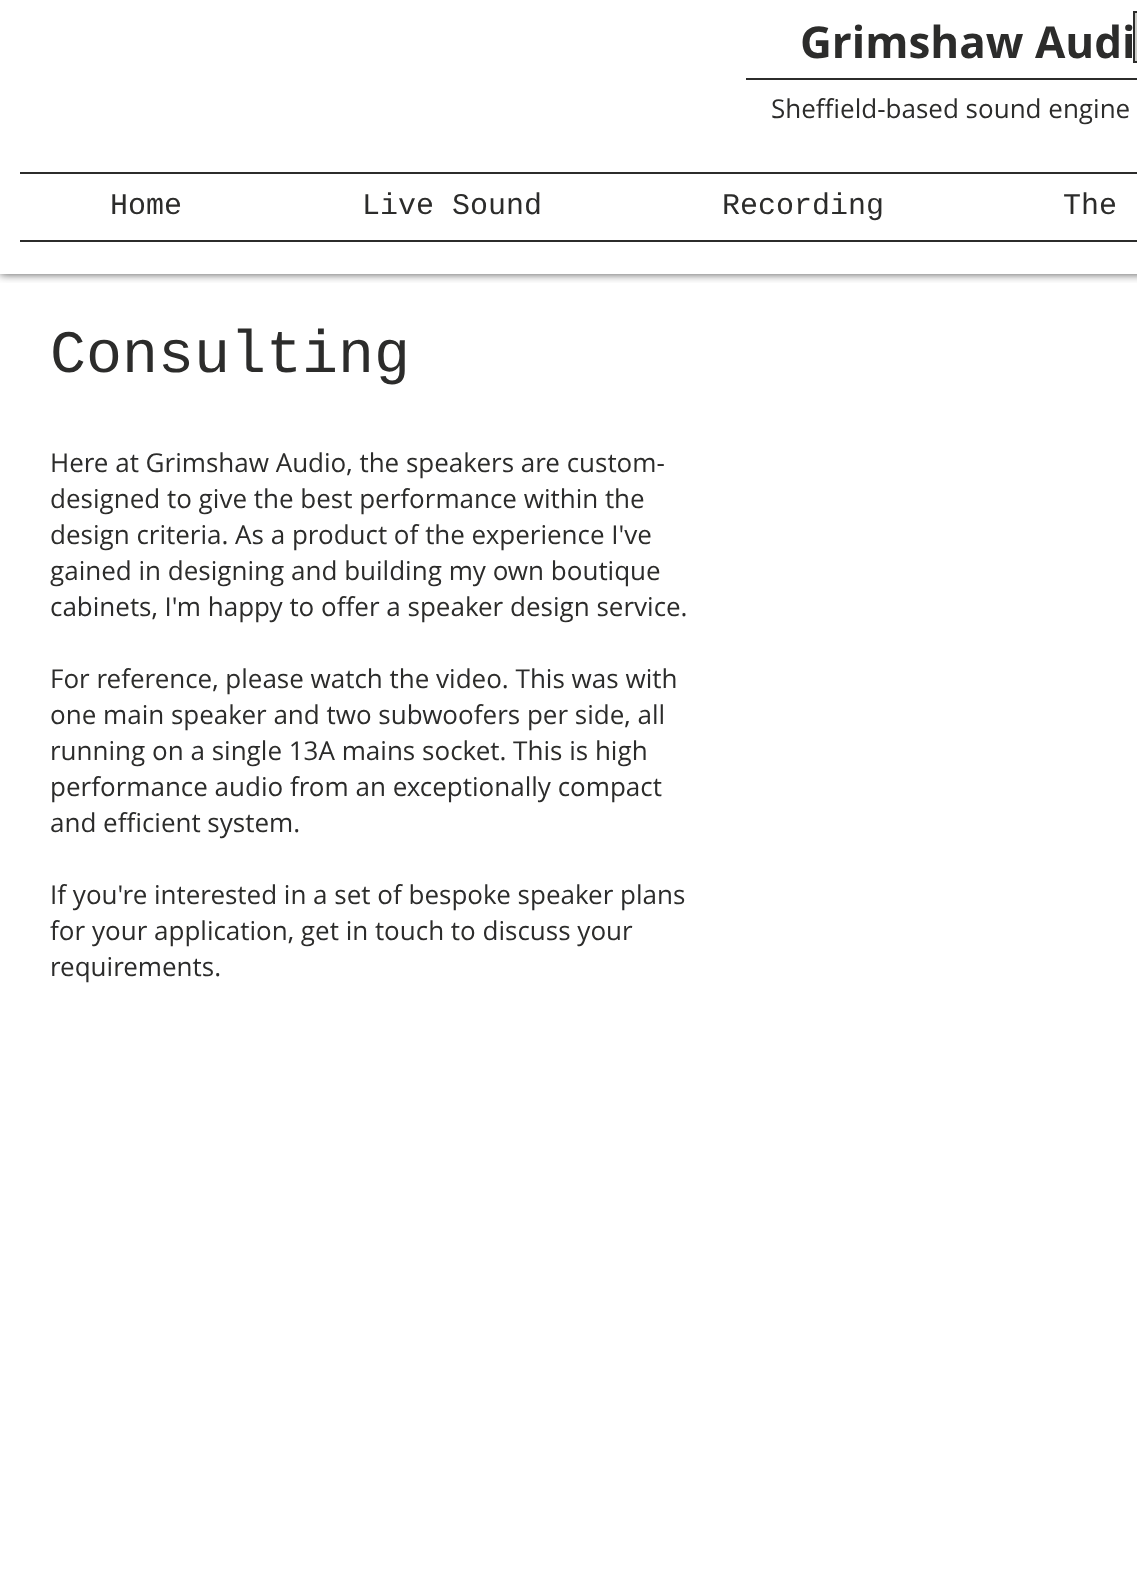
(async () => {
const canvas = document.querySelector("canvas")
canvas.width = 1137
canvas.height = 1593
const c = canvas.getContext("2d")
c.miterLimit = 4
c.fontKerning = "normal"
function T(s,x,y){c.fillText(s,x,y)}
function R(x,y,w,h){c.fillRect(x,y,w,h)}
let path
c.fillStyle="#fff"
R(0,0,1137,1593)
c.save()
c.beginPath()
c.rect(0,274,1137,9)
c.clip()
c.fillStyle="#000000b3"
c.filter="blur(5px)"
c.beginPath()
c.rect(0,0,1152,274)
c.fill()
c.filter="none"
c.restore()
c.font="bold 44px Open Sans"
c.fillStyle="#2c2c2b"
T("Grimshaw Audi",800,58)
c.fillStyle="#cdcdc9"
R(1135,12,2,50)
path = new Path2D("M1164 12v50h-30v-50z")
c.strokeStyle="#2c2c2b"
c.lineWidth=2
c.stroke(path)
c.fillStyle="#2c2c2b"
R(746,78,391,2)
c.font="26px Open Sans"
T("Sheffield-based sound engine",771,118)
R(20,172,1117,2)
R(20,240,1117,2)
c.font="30px Liberation Mono"
T("Home",110,214)
T("Live Sound",362,214)
T("Recording",722,214)
T("The",1063,214)
c.font="60px Liberation Mono"
T("Consulting",50,372)
c.font="26px Open Sans"
T("Here at Grimshaw Audio, the speakers are custom-",50,472)
T("designed to give the best performance within the",50,508)
T("design criteria. As a product of the experience I've",50,544)
T("gained in designing and building my own boutique",50,580)
T("cabinets, I'm happy to offer a speaker design service.",50,616)
T("For reference, please watch the video. This was with",50,688)
T("one main speaker and two subwoofers per side, all",50,724)
T("running on a single 13A mains socket. This is high",50,760)
T("performance audio from an exceptionally compact",50,796)
T("and efficient system.",50,832)
T("If you're interested in a set of bespoke speaker plans",50,904)
T("for your application, get in touch to discuss your",50,940)
T("requirements.",50,976)
})()
